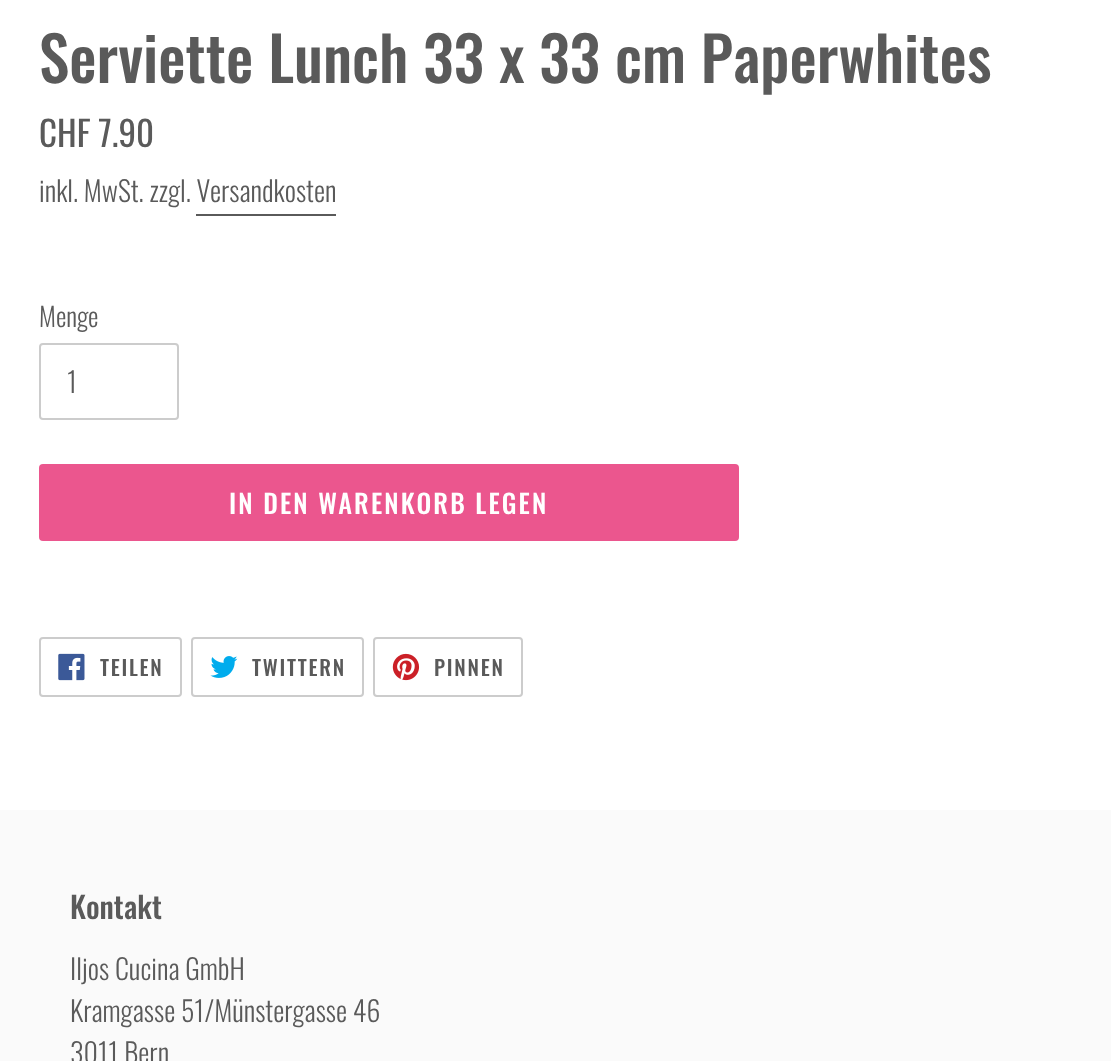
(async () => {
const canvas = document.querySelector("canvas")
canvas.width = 1111
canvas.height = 1061
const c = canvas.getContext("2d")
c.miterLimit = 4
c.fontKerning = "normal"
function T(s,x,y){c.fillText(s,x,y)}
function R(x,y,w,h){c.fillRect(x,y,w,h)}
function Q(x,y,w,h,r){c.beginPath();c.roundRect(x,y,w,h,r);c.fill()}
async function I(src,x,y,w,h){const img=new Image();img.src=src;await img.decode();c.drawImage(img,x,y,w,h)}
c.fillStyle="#fff"
R(0,0,1111,1061)
c.font="500 61.25px Oswald"
c.fillStyle="#5a5a5a"
T("Serviette Lunch 33 x 33 cm Paperwhites",39,83)
c.font="35px Oswald"
T("CHF 7.90",39,147)
c.font="300 28px Oswald"
T("inkl. MwSt. zzgl. Versandkosten",39,202)
R(196,214,140,2)
c.font="300 26.25px Oswald"
T("Menge",39,327)
c.beginPath()
c.roundRect(40,344,138,75,3)
c.strokeStyle="#ccc"
c.lineWidth=2
c.stroke()
c.font="300 28px Oswald"
T("1",67,393)
c.fillStyle="#eb568e"
Q(39,464,700,77,4)
c.letterSpacing="2.1px"
c.font="500 26.25px Oswald"
c.fillStyle="#fff"
T("IN DEN WARENKORB LEGEN",229,514)
c.beginPath()
c.roundRect(40,638,141,58,3)
c.stroke()
await I("1.png",58,653,27,28)
c.letterSpacing="1.75px"
c.font="500 21px Oswald"
c.fillStyle="#5a5a5a"
T("TEILEN",100,676)
c.beginPath()
c.roundRect(192,638,171,58,3)
c.stroke()
await I("2.png",210,656,28,22)
T("TWITTERN",252,676)
c.beginPath()
c.roundRect(374,638,148,58,3)
c.stroke()
await I("3.png",392,653,28,28)
T("PINNEN",434,676)
c.fillStyle="#fafafa"
R(0,810,1111,251)
c.letterSpacing="0px"
c.font="500 30px Oswald"
c.fillStyle="#5a5a5a"
T("Kontakt",70,919)
c.font="300 28px Oswald"
T("Iljos Cucina GmbH",70,980)
T("Kramgasse 51/Münstergasse 46",70,1022)
T("3011 Bern",70,1064)
})()
